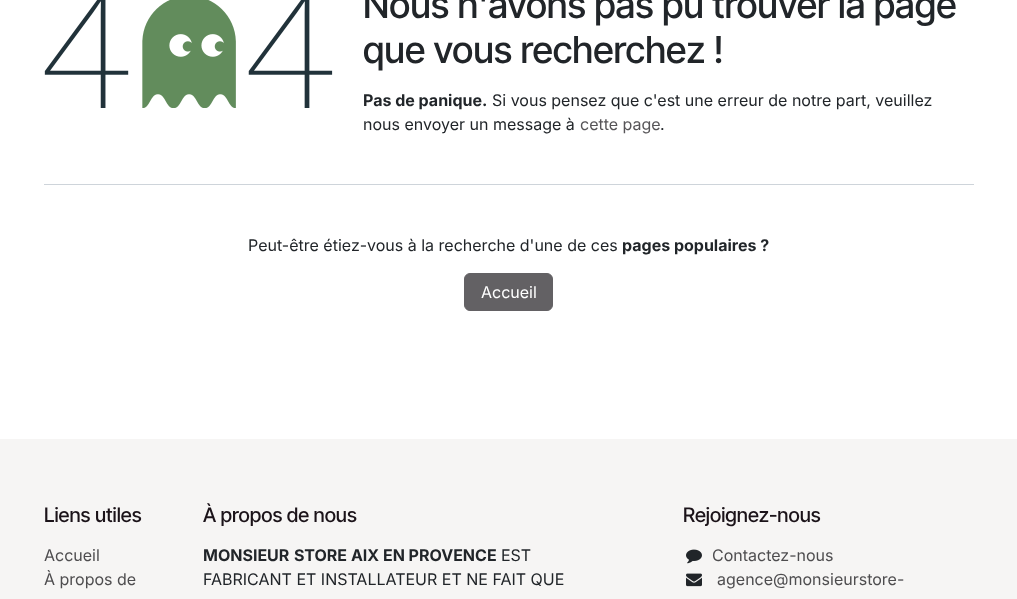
(async () => {
const canvas = document.querySelector("canvas")
canvas.width = 1017
canvas.height = 599
const c = canvas.getContext("2d")
c.miterLimit = 4
c.fontKerning = "normal"
function T(s,x,y){c.fillText(s,x,y)}
function R(x,y,w,h){c.fillRect(x,y,w,h)}
async function I(src,x,y,w,h){const img=new Image();img.src=src;await img.decode();c.drawImage(img,x,y,w,h)}
c.fillStyle="#fff"
R(0,0,1017,599)
await I("1.png",44,0,289,108)
c.font="500 37.25px Inter Tight"
c.fillStyle="#212529"
T("Nous n'avons pas pu trouver la page",363,18)
T("que vous recherchez !",363,63)
c.font="bold 16px Inter"
T("Pas de panique.",363,106)
c.font="16px Inter"
T("Si vous pensez que c'est une erreur de notre part, veuillez",492,106)
T("nous envoyer un message à",363,130)
c.fillStyle="#565457"
T("cette page",580,130)
c.fillStyle="#212529"
T(".",660,130)
c.fillStyle="#ced4da"
R(44,184,930,1)
c.fillStyle="#212529"
T("Peut-être étiez-vous à la recherche d'une de ces",248,251)
c.font="bold 16px Inter"
T("pages populaires ?",622,251)
c.fillStyle="#636164"
c.beginPath()
c.roundRect(464.5,273.5,88,37,5.5)
c.fill()
c.strokeStyle="#636164"
c.stroke()
c.font="16px Inter"
c.fillStyle="#fff"
T("Accueil",481,298)
c.fillStyle="#f6f5f4"
R(0,439,1017,160)
c.font="500 20px Inter Tight"
c.fillStyle="#1b1319"
T("Liens utiles",44,522)
c.font="16px Inter"
c.fillStyle="#4e4d4f"
T("Accueil",44,561)
T("À propos de",44,585)
c.font="500 20px Inter Tight"
c.fillStyle="#1b1319"
T("À propos de nous",203,522)
c.font="bold 16px Inter"
c.fillStyle="#212529"
T("MONSIEUR",203,561)
T("STORE AIX EN PROVENCE",294,561)
c.font="16px Inter"
T("EST",501,561)
T("FABRICANT ET INSTALLATEUR ET NE FAIT QUE",203,585)
c.font="500 20px Inter Tight"
c.fillStyle="#1b1319"
T("Rejoignez-nous",683,522)
await I("2.png",686,549,16,15)
c.font="16px Inter"
c.fillStyle="#4e4d4f"
T("Contactez-nous",712,561)
await I("3.png",686,573,16,14)
T("agence@monsieurstore-",717,585)
})()
